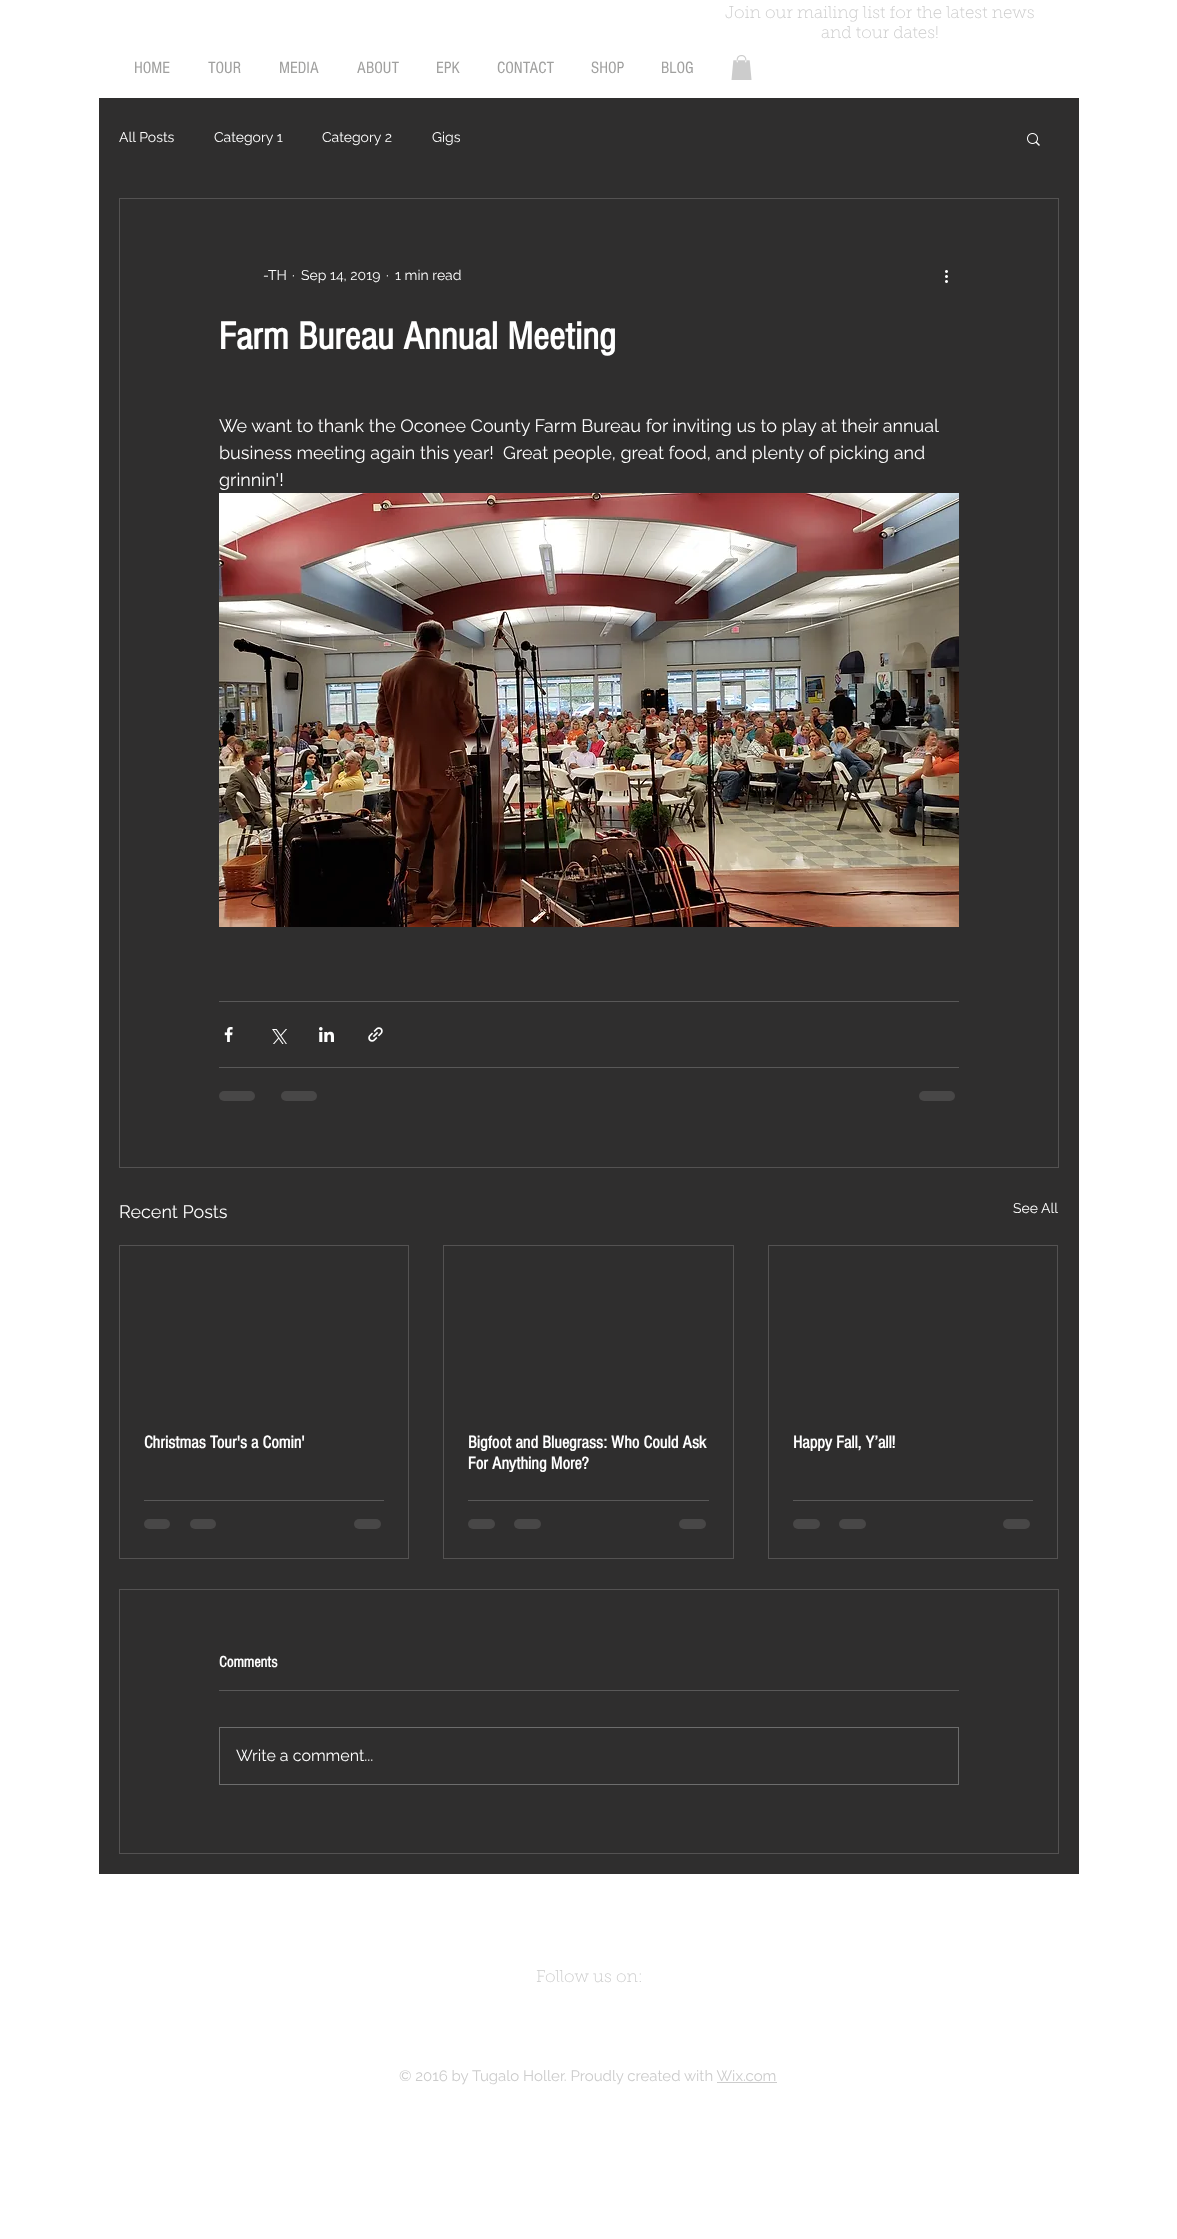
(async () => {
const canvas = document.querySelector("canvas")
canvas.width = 1177
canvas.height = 2239
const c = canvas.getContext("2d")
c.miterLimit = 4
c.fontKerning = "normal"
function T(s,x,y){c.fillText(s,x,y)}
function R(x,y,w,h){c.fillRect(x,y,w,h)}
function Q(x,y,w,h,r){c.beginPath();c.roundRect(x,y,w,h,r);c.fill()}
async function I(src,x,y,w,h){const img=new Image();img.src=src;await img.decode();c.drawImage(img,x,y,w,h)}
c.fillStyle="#fff"
R(0,0,1177,2239)
c.font="100 17px 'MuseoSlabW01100'"
c.fillStyle="#ccc"
T("Join our mailing list for the latest news",725,18)
T("and tour dates!",821,38)
c.font="17px 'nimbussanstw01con'"
c.fillStyle="#a0a09f"
T("HOME",134,73)
T("TOUR",208,73)
T("MEDIA",279,73)
T("ABOUT",357,73)
T("EPK",436,73)
T("CONTACT",497,73)
T("SHOP",591,73)
T("BLOG",661,73)
await I("1.png",731,55,21,25)
c.fillStyle="#2f2e2e"
R(99,98,980,1776)
c.font="14px Raleway"
c.fillStyle="#fff"
T("All Posts",119,142)
T("Category 1",214,142)
T("Category 2",322,142)
T("Gigs",432,142)
await I("2.png",1027,133,13,13)
c.strokeStyle="#545252"
c.strokeRect(119.5,198.5,939,969)
T("-TH",263,280)
T("·",292,280)
T("Sep 14, 2019",301,280)
T("·",386,280)
T("1 min read",395,280)
await I("3.png",945,270,3,13)
c.font="bold 40px 'nimbussanstw01con'"
T("Farm Bureau Annual Meeting",219,349)
c.font="18px Raleway"
T("We want to thank the Oconee County Farm Bureau for inviting us to play at their annual",219,432)
T("business meeting again this year!  Great people, great food, and plenty of picking and",219,459)
T("grinnin'!",219,486)
await I("4.png",219,493,740,434)
c.fillStyle="#595858"
R(219,1001,740,1)
await I("5.png",224,1027,9,15)
await I("6.png",272,1029,15,15)
await I("7.png",319,1027,15,15)
await I("8.png",368,1027,15,15)
R(219,1067,740,1)
c.fillStyle="#484747"
Q(219,1091,36,10,5)
Q(281,1091,36,10,5)
Q(919,1091,36,10,5)
c.fillStyle="#fff"
T("Recent Posts",119,1218)
c.font="14px Raleway"
T("See All",1013,1213)
c.strokeRect(119.5,1245.5,289,313)
c.font="bold 18px 'nimbussanstw01con'"
T("Christmas Tour's a Comin'",144,1448)
c.fillStyle="#595858"
R(144,1500,240,1)
c.fillStyle="#484747"
Q(144,1519,26,10,5)
Q(190,1519,26,10,5)
Q(354,1519,27,10,5)
c.strokeRect(443.5,1245.5,290,313)
c.fillStyle="#fff"
T("Bigfoot and Bluegrass: Who Could Ask",468,1448)
T("For Anything More?",468,1469)
c.fillStyle="#595858"
R(468,1500,241,1)
c.fillStyle="#484747"
Q(468,1519,27,10,5)
Q(514,1519,27,10,5)
Q(679,1519,27,10,5)
c.strokeRect(768.5,1245.5,289,313)
c.fillStyle="#fff"
T("Happy Fall, Y’all!",793,1448)
c.fillStyle="#595858"
R(793,1500,240,1)
c.fillStyle="#484747"
Q(793,1519,27,10,5)
Q(839,1519,27,10,5)
Q(1003,1519,27,10,5)
c.strokeRect(119.5,1589.5,939,264)
c.font="bold 16px 'nimbussanstw01con'"
c.fillStyle="#fff"
T("Comments",219,1667)
c.fillStyle="#595858"
R(219,1690,740,1)
c.strokeStyle="#6d6d6d"
c.strokeRect(219.5,1727.5,739,57)
c.font="16px Raleway"
c.fillStyle="#fff"
T("Write a comment...",236,1761)
c.font="100 17px 'MuseoSlabW01100'"
c.fillStyle="#ccc"
T("Follow us on:",536,1982)
c.font="15px Raleway"
T("© 2016 by",399,2081)
T("Tugalo Holler. Proudly created with Wix.com",472,2081)
R(717,2082,60,1)
})()
